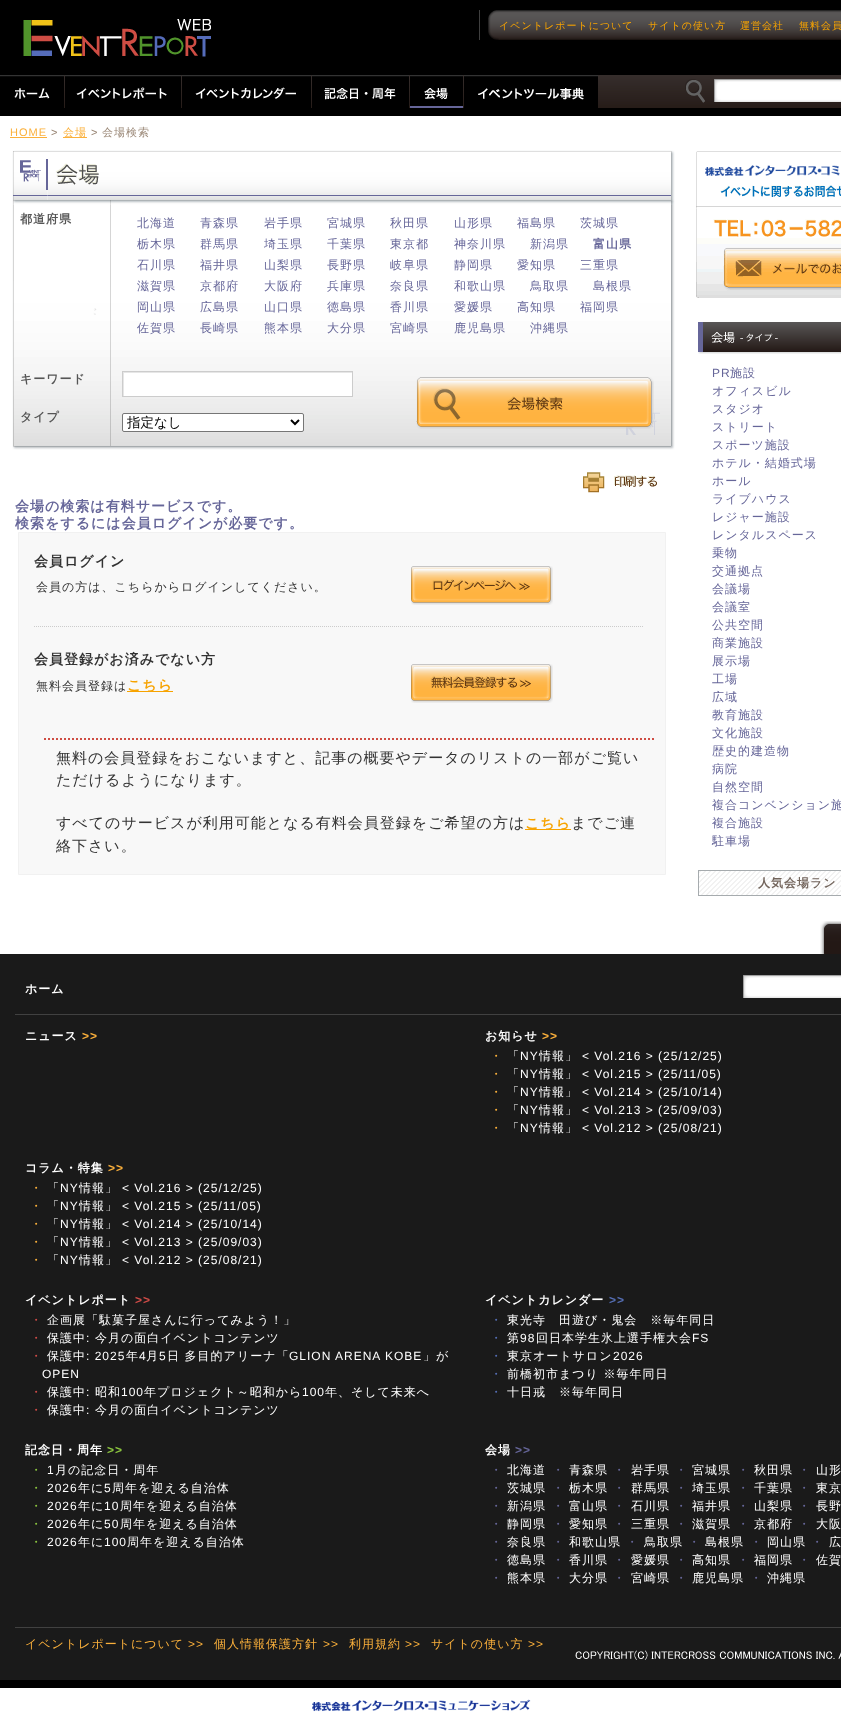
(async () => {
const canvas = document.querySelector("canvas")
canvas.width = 841
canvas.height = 1720
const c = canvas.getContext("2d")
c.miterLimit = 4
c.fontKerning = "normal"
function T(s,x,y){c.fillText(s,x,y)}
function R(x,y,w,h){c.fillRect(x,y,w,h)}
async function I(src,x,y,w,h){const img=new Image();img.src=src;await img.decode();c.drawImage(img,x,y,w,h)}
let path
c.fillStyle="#fff"
R(0,0,841,1720)
await I("1.png",0,75,841,41)
c.fillStyle="#000"
R(0,0,841,75)
await I("2.png",23,19,188,38)
await I("3.png",499,10,342,30)
await I("4.png",479,10,20,30)
c.letterSpacing="1px"
c.font="500 10px WenQuanYi Zen Hei"
c.fillStyle="#f7a300"
T("イベントレポートについて",499,29)
T("サイトの使い方",648,29)
T("運営会社",740,29)
T("無料会員",799,29)
await I("5.png",0,75,64,33)
await I("6.png",65,75,116,33)
await I("7.png",182,75,129,33)
await I("8.png",312,75,97,33)
await I("9.png",410,75,53,31)
c.fillStyle="#669"
R(410,106,53,2)
await I("10.png",464,75,134,33)
await I("11.png",685,79,20,24)
await I("12.png",714,79,127,23)
c.save()
c.beginPath()
c.rect(714,79,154,24)
c.clip()
c.fillStyle="#0000001a"
path = new Path2D("M615-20h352v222h-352zm100 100h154v24h-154z")
c.fill(path,"evenodd")
c.restore()
c.font="11px Liberation Sans"
c.fillStyle="#fbb03b"
T("HOME",10,136)
R(10,137,37,1)
c.fillStyle="#998675"
T(">",51,136)
c.fillStyle="#fbb03b"
R(63,137,24,1)
c.font="500 11px WenQuanYi Zen Hei"
T("会場",63,136)
c.font="11px Liberation Sans"
c.fillStyle="#998675"
T(">",91,136)
c.font="500 11px WenQuanYi Zen Hei"
T("会場検索",102,136)
await I("13.png",12,150,663,55)
await I("14.png",12,205,663,245)
c.font="bold 12px WenQuanYi Zen Hei"
c.fillStyle="#555"
T("都道府県",20,223)
c.font="500 12px WenQuanYi Zen Hei"
c.fillStyle="#669"
T("北海道",137,227)
T("青森県",200,227)
T("岩手県",264,227)
T("宮城県",327,227)
T("秋田県",390,227)
T("山形県",454,227)
T("福島県",517,227)
T("茨城県",580,227)
T("栃木県",137,248)
T("群馬県",200,248)
T("埼玉県",264,248)
T("千葉県",327,248)
T("東京都",390,248)
T("神奈川県",454,248)
T("新潟県",530,248)
c.font="bold 12px WenQuanYi Zen Hei"
T("富山県",593,248)
c.font="500 12px WenQuanYi Zen Hei"
T("石川県",137,269)
T("福井県",200,269)
T("山梨県",264,269)
T("長野県",327,269)
T("岐阜県",390,269)
T("静岡県",454,269)
T("愛知県",517,269)
T("三重県",580,269)
T("滋賀県",137,290)
T("京都府",200,290)
T("大阪府",264,290)
T("兵庫県",327,290)
T("奈良県",390,290)
T("和歌山県",454,290)
T("鳥取県",530,290)
T("島根県",593,290)
T("岡山県",137,311)
T("広島県",200,311)
T("山口県",264,311)
T("徳島県",327,311)
T("香川県",390,311)
T("愛媛県",454,311)
T("高知県",517,311)
T("福岡県",580,311)
T("佐賀県",137,332)
T("長崎県",200,332)
T("熊本県",264,332)
T("大分県",327,332)
T("宮崎県",390,332)
T("鹿児島県",454,332)
T("沖縄県",530,332)
c.font="bold 12px WenQuanYi Zen Hei"
c.fillStyle="#555"
T("キーワード",20,383)
c.fillStyle="#fff"
R(124,373,228,23)
c.save()
c.beginPath()
c.rect(123,372,229,24)
c.clip()
c.fillStyle="#e6e6e6"
path = new Path2D("M24 273h427v222h-427zm100 100h229v24h-229z")
c.fill(path,"evenodd")
c.restore()
c.strokeStyle="#ccc"
c.strokeRect(122.5,371.5,230,25)
c.fillStyle="#555"
T("タイプ",20,421)
c.fillStyle="#fff"
c.beginPath()
c.roundRect(122.5,413.5,181,18,1.5)
c.fill()
c.strokeStyle="#767676"
c.stroke()
path = new Path2D("M291 420l4 4l4-4")
c.strokeStyle="#000"
c.lineWidth=2
c.stroke(path)
c.letterSpacing="0px"
c.font="500 13.5px WenQuanYi Zen Hei"
c.fillStyle="#000"
T("指定なし",127,427)
await I("15.png",416,377,238,52)
await I("16.png",583,472,74,21)
c.letterSpacing="1px"
c.font="bold 14px WenQuanYi Zen Hei"
c.fillStyle="#669"
T("会場の検索は有料サービスです。",15,511)
T("検索をするには会員ログインが必要です。",15,528)
c.fillStyle="#f8f8f8"
c.beginPath()
c.rect(18.5,532.5,647,342)
c.fill()
c.strokeStyle="#f1f1f1"
c.lineWidth=1
c.stroke()
path = new Path2D("M34 626.5h610")
c.strokeStyle="#ccc"
c.setLineDash([1,1])
c.stroke(path)
c.fillStyle="#333"
T("会員ログイン",34,566)
c.font="500 12px WenQuanYi Zen Hei"
T("会員の方は、こちらからログインしてください。",36,591)
await I("17.png",411,566,142,39)
c.font="bold 14px WenQuanYi Zen Hei"
T("会員登録がお済みでない方",34,664)
c.font="500 12px WenQuanYi Zen Hei"
T("無料会員登録は",36,690)
c.fillStyle="#f7a300"
R(127,691,46,1)
c.font="bold 14px WenQuanYi Zen Hei"
T("こちら",127,690)
await I("18.png",411,664,142,39)
path = new Path2D("M44 739h611")
c.strokeStyle="#cf4d44"
c.lineWidth=2
c.setLineDash([2,2])
c.stroke(path)
c.font="500 15px WenQuanYi Zen Hei"
c.fillStyle="#333"
T("無料の会員登録をおこないますと、記事の概要やデータのリストの一部がご覧い",56,763)
T("ただけるようになります。",56,785)
T("すべてのサービスが利用可能となる有料会員登録をご希望の方は",56,828)
c.fillStyle="#f7a300"
R(525,829,46,1)
c.font="bold 14px WenQuanYi Zen Hei"
T("こちら",525,828)
c.font="500 15px WenQuanYi Zen Hei"
c.fillStyle="#333"
T("までご連",571,828)
T("絡下さい。",56,851)
await I("19.png",696,151,145,147)
await I("20.png",698,322,143,32)
c.font="12px Liberation Sans"
c.fillStyle="#669"
T("PR",712,377)
c.font="500 12px WenQuanYi Zen Hei"
T("施設",730,377)
T("オフィスビル",712,395)
T("スタジオ",712,413)
T("ストリート",712,431)
T("スポーツ施設",712,449)
T("ホテル・結婚式場",712,467)
T("ホール",712,485)
T("ライブハウス",712,503)
T("レジャー施設",712,521)
T("レンタルスペース",712,539)
T("乗物",712,557)
T("交通拠点",712,575)
T("会議場",712,593)
T("会議室",712,611)
T("公共空間",712,629)
T("商業施設",712,647)
T("展示場",712,665)
T("工場",712,683)
T("広域",712,701)
T("教育施設",712,719)
T("文化施設",712,737)
T("歴史的建造物",712,755)
T("病院",712,773)
T("自然空間",712,791)
T("複合コンベンション施",712,809)
T("複合施設",712,827)
T("駐車場",712,845)
await I("21.png",699,871,142,24)
c.strokeStyle="#a6abae"
c.lineWidth=1
c.setLineDash([])
c.strokeRect(698.5,870.5,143,25)
c.font="bold 12px WenQuanYi Zen Hei"
c.fillStyle="#72645b"
T("人気会場ラン",758,887)
await I("22.png",820,921,21,33)
c.fillStyle="#1a1a1a"
R(0,954,841,726)
c.fillStyle="#000"
R(0,1680,841,8)
await I("23.png",743,975,98,23)
c.save()
c.beginPath()
c.rect(743,975,98,24)
c.clip()
c.fillStyle="#0000001a"
path = new Path2D("M644 876h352v222h-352zm100 100h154v24h-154z")
c.fill(path,"evenodd")
c.restore()
c.fillStyle="#fff"
T("ホーム",25,993)
c.fillStyle="#414141"
R(15,1014,826,1)
c.fillStyle="#fff"
T("ニュース",25,1040)
c.font="bold 12px Liberation Sans"
c.fillStyle="#fbb03b"
T(">>",82,1040)
c.font="bold 12px WenQuanYi Zen Hei"
c.fillStyle="#fff"
T("お知らせ",485,1040)
c.font="bold 12px Liberation Sans"
c.fillStyle="#fbb03b"
T(">>",542,1040)
c.font="500 12px WenQuanYi Zen Hei"
T("・",490,1060)
c.fillStyle="#fff"
T("「",507,1060)
c.font="12px Liberation Sans"
T("NY",520,1060)
c.font="500 12px WenQuanYi Zen Hei"
T("情報」",539,1060)
c.font="12px Liberation Sans"
T("< Vol.216 > (25/12/25)",582,1060)
c.font="500 12px WenQuanYi Zen Hei"
c.fillStyle="#fbb03b"
T("・",490,1078)
c.fillStyle="#fff"
T("「",507,1078)
c.font="12px Liberation Sans"
T("NY",520,1078)
c.font="500 12px WenQuanYi Zen Hei"
T("情報」",539,1078)
c.font="12px Liberation Sans"
T("< Vol.215 > (25/11/05)",582,1078)
c.font="500 12px WenQuanYi Zen Hei"
c.fillStyle="#fbb03b"
T("・",490,1096)
c.fillStyle="#fff"
T("「",507,1096)
c.font="12px Liberation Sans"
T("NY",520,1096)
c.font="500 12px WenQuanYi Zen Hei"
T("情報」",539,1096)
c.font="12px Liberation Sans"
T("< Vol.214 > (25/10/14)",582,1096)
c.font="500 12px WenQuanYi Zen Hei"
c.fillStyle="#fbb03b"
T("・",490,1114)
c.fillStyle="#fff"
T("「",507,1114)
c.font="12px Liberation Sans"
T("NY",520,1114)
c.font="500 12px WenQuanYi Zen Hei"
T("情報」",539,1114)
c.font="12px Liberation Sans"
T("< Vol.213 > (25/09/03)",582,1114)
c.font="500 12px WenQuanYi Zen Hei"
c.fillStyle="#fbb03b"
T("・",490,1132)
c.fillStyle="#fff"
T("「",507,1132)
c.font="12px Liberation Sans"
T("NY",520,1132)
c.font="500 12px WenQuanYi Zen Hei"
T("情報」",539,1132)
c.font="12px Liberation Sans"
T("< Vol.212 > (25/08/21)",582,1132)
c.font="bold 12px WenQuanYi Zen Hei"
T("コラム・特集",25,1172)
c.font="bold 12px Liberation Sans"
c.fillStyle="#fbb03b"
T(">>",108,1172)
c.font="500 12px WenQuanYi Zen Hei"
T("・",30,1192)
c.fillStyle="#fff"
T("「",47,1192)
c.font="12px Liberation Sans"
T("NY",60,1192)
c.font="500 12px WenQuanYi Zen Hei"
T("情報」",79,1192)
c.font="12px Liberation Sans"
T("< Vol.216 > (25/12/25)",122,1192)
c.font="500 12px WenQuanYi Zen Hei"
c.fillStyle="#fbb03b"
T("・",30,1210)
c.fillStyle="#fff"
T("「",47,1210)
c.font="12px Liberation Sans"
T("NY",60,1210)
c.font="500 12px WenQuanYi Zen Hei"
T("情報」",79,1210)
c.font="12px Liberation Sans"
T("< Vol.215 > (25/11/05)",122,1210)
c.font="500 12px WenQuanYi Zen Hei"
c.fillStyle="#fbb03b"
T("・",30,1228)
c.fillStyle="#fff"
T("「",47,1228)
c.font="12px Liberation Sans"
T("NY",60,1228)
c.font="500 12px WenQuanYi Zen Hei"
T("情報」",79,1228)
c.font="12px Liberation Sans"
T("< Vol.214 > (25/10/14)",122,1228)
c.font="500 12px WenQuanYi Zen Hei"
c.fillStyle="#fbb03b"
T("・",30,1246)
c.fillStyle="#fff"
T("「",47,1246)
c.font="12px Liberation Sans"
T("NY",60,1246)
c.font="500 12px WenQuanYi Zen Hei"
T("情報」",79,1246)
c.font="12px Liberation Sans"
T("< Vol.213 > (25/09/03)",122,1246)
c.font="500 12px WenQuanYi Zen Hei"
c.fillStyle="#fbb03b"
T("・",30,1264)
c.fillStyle="#fff"
T("「",47,1264)
c.font="12px Liberation Sans"
T("NY",60,1264)
c.font="500 12px WenQuanYi Zen Hei"
T("情報」",79,1264)
c.font="12px Liberation Sans"
T("< Vol.212 > (25/08/21)",122,1264)
c.font="bold 12px WenQuanYi Zen Hei"
T("イベントレポート",25,1304)
c.font="bold 12px Liberation Sans"
c.fillStyle="#d04c48"
T(">>",135,1304)
c.font="500 12px WenQuanYi Zen Hei"
T("・",30,1324)
c.fillStyle="#fff"
T("企画展「駄菓子屋さんに行ってみよう！」",47,1324)
c.fillStyle="#d04c48"
T("・",30,1342)
c.fillStyle="#fff"
T("保護中",47,1342)
c.font="12px Liberation Sans"
T(":",86,1342)
c.font="500 12px WenQuanYi Zen Hei"
T("今月の面白イベントコンテンツ",95,1342)
c.fillStyle="#d04c48"
T("・",30,1360)
c.fillStyle="#fff"
T("保護中",47,1360)
c.font="12px Liberation Sans"
T(": 2025",86,1360)
c.font="500 12px WenQuanYi Zen Hei"
T("年",126,1360)
c.font="12px Liberation Sans"
T("4",139,1360)
c.font="500 12px WenQuanYi Zen Hei"
T("月",146,1360)
c.font="12px Liberation Sans"
T("5",159,1360)
c.font="500 12px WenQuanYi Zen Hei"
T("日 多目的アリーナ「",167,1360)
c.font="12px Liberation Sans"
T("GLION ARENA KOBE",289,1360)
c.font="500 12px WenQuanYi Zen Hei"
T("」が",423,1360)
c.font="12px Liberation Sans"
T("OPEN",42,1378)
c.font="500 12px WenQuanYi Zen Hei"
c.fillStyle="#d04c48"
T("・",30,1396)
c.fillStyle="#fff"
T("保護中",47,1396)
c.font="12px Liberation Sans"
T(":",86,1396)
c.font="500 12px WenQuanYi Zen Hei"
T("昭和",95,1396)
c.font="12px Liberation Sans"
T("100",121,1396)
c.font="500 12px WenQuanYi Zen Hei"
T("年プロジェクト～昭和から",144,1396)
c.font="12px Liberation Sans"
T("100",302,1396)
c.font="500 12px WenQuanYi Zen Hei"
T("年、そして未来へ",325,1396)
c.fillStyle="#d04c48"
T("・",30,1414)
c.fillStyle="#fff"
T("保護中",47,1414)
c.font="12px Liberation Sans"
T(":",86,1414)
c.font="500 12px WenQuanYi Zen Hei"
T("今月の面白イベントコンテンツ",95,1414)
c.font="bold 12px WenQuanYi Zen Hei"
T("イベントカレンダー",485,1304)
c.font="bold 12px Liberation Sans"
c.fillStyle="#556eb4"
T(">>",609,1304)
c.font="500 12px WenQuanYi Zen Hei"
T("・",490,1324)
c.fillStyle="#fff"
T("東光寺　田遊び・鬼会　※毎年同日",507,1324)
c.fillStyle="#556eb4"
T("・",490,1342)
c.fillStyle="#fff"
T("第",507,1342)
c.font="12px Liberation Sans"
T("98",520,1342)
c.font="500 12px WenQuanYi Zen Hei"
T("回日本学生氷上選手権大会",536,1342)
c.font="12px Liberation Sans"
T("FS",692,1342)
c.font="500 12px WenQuanYi Zen Hei"
c.fillStyle="#556eb4"
T("・",490,1360)
c.fillStyle="#fff"
T("東京オートサロン",507,1360)
c.font="12px Liberation Sans"
T("2026",613,1360)
c.font="500 12px WenQuanYi Zen Hei"
c.fillStyle="#556eb4"
T("・",490,1378)
c.fillStyle="#fff"
T("前橋初市まつり ※毎年同日",507,1378)
c.fillStyle="#556eb4"
T("・",490,1396)
c.fillStyle="#fff"
T("十日戒　※毎年同日",507,1396)
c.font="bold 12px WenQuanYi Zen Hei"
T("記念日・周年",25,1454)
c.font="bold 12px Liberation Sans"
c.fillStyle="#8cc63f"
T(">>",107,1454)
c.font="500 12px WenQuanYi Zen Hei"
T("・",30,1474)
c.font="12px Liberation Sans"
c.fillStyle="#fff"
T("1",47,1474)
c.font="500 12px WenQuanYi Zen Hei"
T("月の記念日・周年",55,1474)
c.fillStyle="#8cc63f"
T("・",30,1492)
c.font="12px Liberation Sans"
c.fillStyle="#fff"
T("2026",47,1492)
c.font="500 12px WenQuanYi Zen Hei"
T("年に",78,1492)
c.font="12px Liberation Sans"
T("5",104,1492)
c.font="500 12px WenQuanYi Zen Hei"
T("周年を迎える自治体",112,1492)
c.fillStyle="#8cc63f"
T("・",30,1510)
c.font="12px Liberation Sans"
c.fillStyle="#fff"
T("2026",47,1510)
c.font="500 12px WenQuanYi Zen Hei"
T("年に",78,1510)
c.font="12px Liberation Sans"
T("10",104,1510)
c.font="500 12px WenQuanYi Zen Hei"
T("周年を迎える自治体",120,1510)
c.fillStyle="#8cc63f"
T("・",30,1528)
c.font="12px Liberation Sans"
c.fillStyle="#fff"
T("2026",47,1528)
c.font="500 12px WenQuanYi Zen Hei"
T("年に",78,1528)
c.font="12px Liberation Sans"
T("50",104,1528)
c.font="500 12px WenQuanYi Zen Hei"
T("周年を迎える自治体",120,1528)
c.fillStyle="#8cc63f"
T("・",30,1546)
c.font="12px Liberation Sans"
c.fillStyle="#fff"
T("2026",47,1546)
c.font="500 12px WenQuanYi Zen Hei"
T("年に",78,1546)
c.font="12px Liberation Sans"
T("100",104,1546)
c.font="500 12px WenQuanYi Zen Hei"
T("周年を迎える自治体",127,1546)
c.font="bold 12px WenQuanYi Zen Hei"
T("会場",485,1454)
c.font="bold 12px Liberation Sans"
c.fillStyle="#669"
T(">>",515,1454)
c.font="500 12px WenQuanYi Zen Hei"
T("・",490,1474)
c.fillStyle="#fff"
T("北海道",507,1474)
c.fillStyle="#669"
T("・",552,1474)
c.fillStyle="#fff"
T("青森県",569,1474)
c.fillStyle="#669"
T("・",613,1474)
c.fillStyle="#fff"
T("岩手県",631,1474)
c.fillStyle="#669"
T("・",675,1474)
c.fillStyle="#fff"
T("宮城県",692,1474)
c.fillStyle="#669"
T("・",737,1474)
c.fillStyle="#fff"
T("秋田県",754,1474)
c.fillStyle="#669"
T("・",798,1474)
c.fillStyle="#fff"
T("山形",816,1474)
c.fillStyle="#669"
T("・",490,1492)
c.fillStyle="#fff"
T("茨城県",507,1492)
c.fillStyle="#669"
T("・",552,1492)
c.fillStyle="#fff"
T("栃木県",569,1492)
c.fillStyle="#669"
T("・",613,1492)
c.fillStyle="#fff"
T("群馬県",631,1492)
c.fillStyle="#669"
T("・",675,1492)
c.fillStyle="#fff"
T("埼玉県",692,1492)
c.fillStyle="#669"
T("・",737,1492)
c.fillStyle="#fff"
T("千葉県",754,1492)
c.fillStyle="#669"
T("・",798,1492)
c.fillStyle="#fff"
T("東京",816,1492)
c.fillStyle="#669"
T("・",490,1510)
c.fillStyle="#fff"
T("新潟県",507,1510)
c.fillStyle="#669"
T("・",552,1510)
c.fillStyle="#fff"
T("富山県",569,1510)
c.fillStyle="#669"
T("・",613,1510)
c.fillStyle="#fff"
T("石川県",631,1510)
c.fillStyle="#669"
T("・",675,1510)
c.fillStyle="#fff"
T("福井県",692,1510)
c.fillStyle="#669"
T("・",737,1510)
c.fillStyle="#fff"
T("山梨県",754,1510)
c.fillStyle="#669"
T("・",798,1510)
c.fillStyle="#fff"
T("長野",816,1510)
c.fillStyle="#669"
T("・",490,1528)
c.fillStyle="#fff"
T("静岡県",507,1528)
c.fillStyle="#669"
T("・",552,1528)
c.fillStyle="#fff"
T("愛知県",569,1528)
c.fillStyle="#669"
T("・",613,1528)
c.fillStyle="#fff"
T("三重県",631,1528)
c.fillStyle="#669"
T("・",675,1528)
c.fillStyle="#fff"
T("滋賀県",692,1528)
c.fillStyle="#669"
T("・",737,1528)
c.fillStyle="#fff"
T("京都府",754,1528)
c.fillStyle="#669"
T("・",798,1528)
c.fillStyle="#fff"
T("大阪",816,1528)
c.fillStyle="#669"
T("・",490,1546)
c.fillStyle="#fff"
T("奈良県",507,1546)
c.fillStyle="#669"
T("・",552,1546)
c.fillStyle="#fff"
T("和歌山県",569,1546)
c.fillStyle="#669"
T("・",626,1546)
c.fillStyle="#fff"
T("鳥取県",644,1546)
c.fillStyle="#669"
T("・",688,1546)
c.fillStyle="#fff"
T("島根県",705,1546)
c.fillStyle="#669"
T("・",750,1546)
c.fillStyle="#fff"
T("岡山県",767,1546)
c.fillStyle="#669"
T("・",811,1546)
c.fillStyle="#fff"
T("広",829,1546)
c.fillStyle="#669"
T("・",490,1564)
c.fillStyle="#fff"
T("徳島県",507,1564)
c.fillStyle="#669"
T("・",552,1564)
c.fillStyle="#fff"
T("香川県",569,1564)
c.fillStyle="#669"
T("・",613,1564)
c.fillStyle="#fff"
T("愛媛県",631,1564)
c.fillStyle="#669"
T("・",675,1564)
c.fillStyle="#fff"
T("高知県",692,1564)
c.fillStyle="#669"
T("・",737,1564)
c.fillStyle="#fff"
T("福岡県",754,1564)
c.fillStyle="#669"
T("・",798,1564)
c.fillStyle="#fff"
T("佐賀",816,1564)
c.fillStyle="#669"
T("・",490,1582)
c.fillStyle="#fff"
T("熊本県",507,1582)
c.fillStyle="#669"
T("・",552,1582)
c.fillStyle="#fff"
T("大分県",569,1582)
c.fillStyle="#669"
T("・",613,1582)
c.fillStyle="#fff"
T("宮崎県",631,1582)
c.fillStyle="#669"
T("・",675,1582)
c.fillStyle="#fff"
T("鹿児島県",692,1582)
c.fillStyle="#669"
T("・",750,1582)
c.fillStyle="#fff"
T("沖縄県",767,1582)
c.fillStyle="#414141"
R(15,1627,826,1)
c.fillStyle="#fbb03b"
T("イベントレポートについて",25,1648)
c.font="12px Liberation Sans"
T(">>",188,1648)
c.font="500 12px WenQuanYi Zen Hei"
T("個人情報保護方針",214,1648)
c.font="12px Liberation Sans"
T(">>",323,1648)
c.font="500 12px WenQuanYi Zen Hei"
T("利用規約",349,1648)
c.font="12px Liberation Sans"
T(">>",405,1648)
c.font="500 12px WenQuanYi Zen Hei"
T("サイトの使い方",431,1648)
c.font="12px Liberation Sans"
T(">>",528,1648)
await I("24.png",575,1650,266,10)
await I("25.png",312,1699,219,13)
})()
